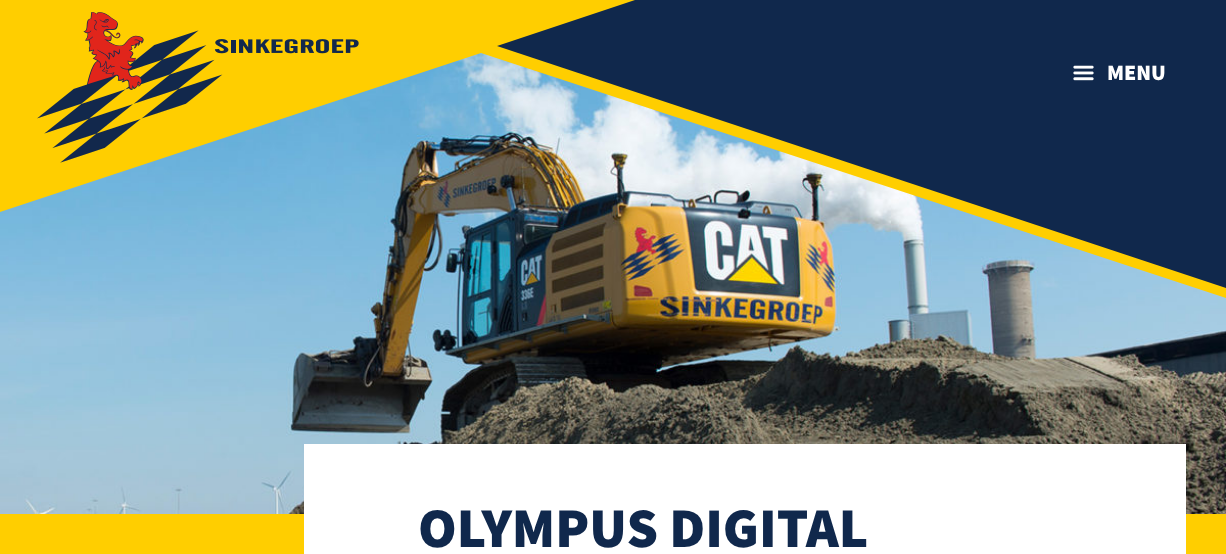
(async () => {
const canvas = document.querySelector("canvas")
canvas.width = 1226
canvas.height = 554
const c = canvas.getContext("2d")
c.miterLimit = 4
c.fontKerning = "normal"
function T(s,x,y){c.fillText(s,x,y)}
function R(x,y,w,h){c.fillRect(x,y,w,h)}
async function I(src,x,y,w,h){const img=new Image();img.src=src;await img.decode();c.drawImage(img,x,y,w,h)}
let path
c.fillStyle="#ffce00"
R(0,0,1226,554)
await I("1.png",0,53,1226,461)
path = new Path2D("M-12 216l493-163l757 249v-302h-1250z")
c.fill(path)
c.fillStyle="#10284c"
path = new Path2D("M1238 0h-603l-138 46l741 246v-292")
c.fill(path)
await I("2.png",37,12,322,151)
await I("3.png",1073,65,21,16)
c.font="900 22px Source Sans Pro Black"
c.fillStyle="#fff"
T("MENU",1107,80)
R(304,444,882,110)
c.font="900 56px Source Sans Pro Black"
c.fillStyle="#10284c"
T("OLYMPUS DIGITAL",418,547)
})()
